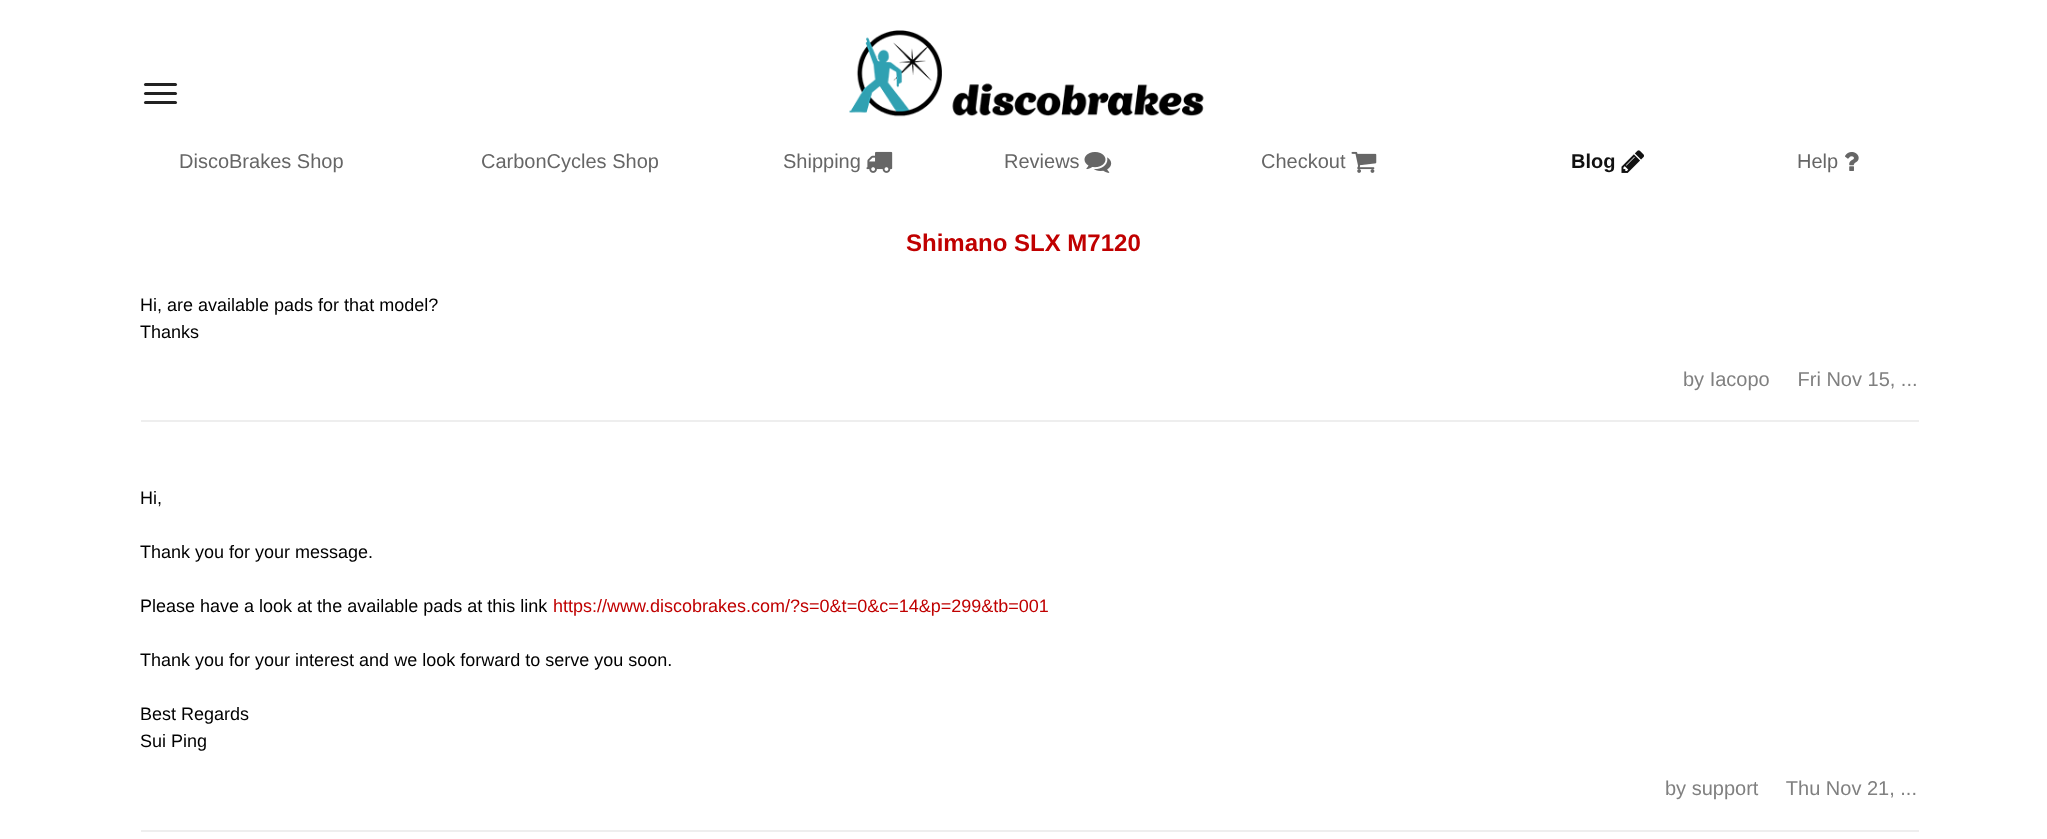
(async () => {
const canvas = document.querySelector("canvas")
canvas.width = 2047
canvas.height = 839
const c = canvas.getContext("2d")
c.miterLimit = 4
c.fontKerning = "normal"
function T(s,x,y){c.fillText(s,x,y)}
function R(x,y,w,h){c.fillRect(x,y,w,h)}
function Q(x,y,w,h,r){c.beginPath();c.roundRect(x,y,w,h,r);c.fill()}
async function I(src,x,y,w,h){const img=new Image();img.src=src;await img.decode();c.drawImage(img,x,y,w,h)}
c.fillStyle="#fff"
R(0,0,2047,839)
c.fillStyle="#222"
Q(144,83,33,3,1.5)
Q(144,92,33,3,1.5)
Q(144,101,33,3,1.5)
await I("1.png",849,30,355,87)
c.font="20px Liberation Sans"
c.fillStyle="#666"
T("DiscoBrakes Shop",179,168)
T("CarbonCycles Shop",481,168)
T("Shipping",783,168)
await I("2.png",866,151,27,22)
T("Reviews",1004,168)
await I("3.png",1084,152,28,21)
T("Checkout",1261,168)
await I("4.png",1351,151,26,22)
c.font="bold 20px Liberation Sans"
c.fillStyle="#111"
T("Blog",1571,168)
await I("5.png",1621,150,23,23)
c.font="20px Liberation Sans"
c.fillStyle="#666"
T("Help",1797,168)
await I("6.png",1845,152,14,19)
c.font="bold 24px Liberation Sans"
c.fillStyle="#c00000"
T("Shimano SLX M7120",906,251)
c.font="18px Liberation Sans"
c.fillStyle="#000"
T("Hi, are available pads for that model?",140,311)
T("Thanks",140,338)
c.font="20px Liberation Sans"
c.fillStyle="#808080"
T("by Iacopo     Fri Nov 15, ...",1683,386)
c.fillStyle="#eee"
R(141,420,1778,2)
c.font="18px Liberation Sans"
c.fillStyle="#000"
T("Hi,",140,504)
T("Thank you for your message.",140,558)
T("Please have a look at the available pads at this link",140,612)
c.fillStyle="#c00000"
T("https://www.discobrakes.com/?s=0&t=0&c=14&p=299&tb=001",553,612)
c.fillStyle="#000"
T("Thank you for your interest and we look forward to serve you soon.",140,666)
T("Best Regards",140,720)
T("Sui Ping",140,747)
c.font="20px Liberation Sans"
c.fillStyle="#808080"
T("by support     Thu Nov 21, ...",1665,795)
c.fillStyle="#eee"
R(141,830,1778,2)
})()
